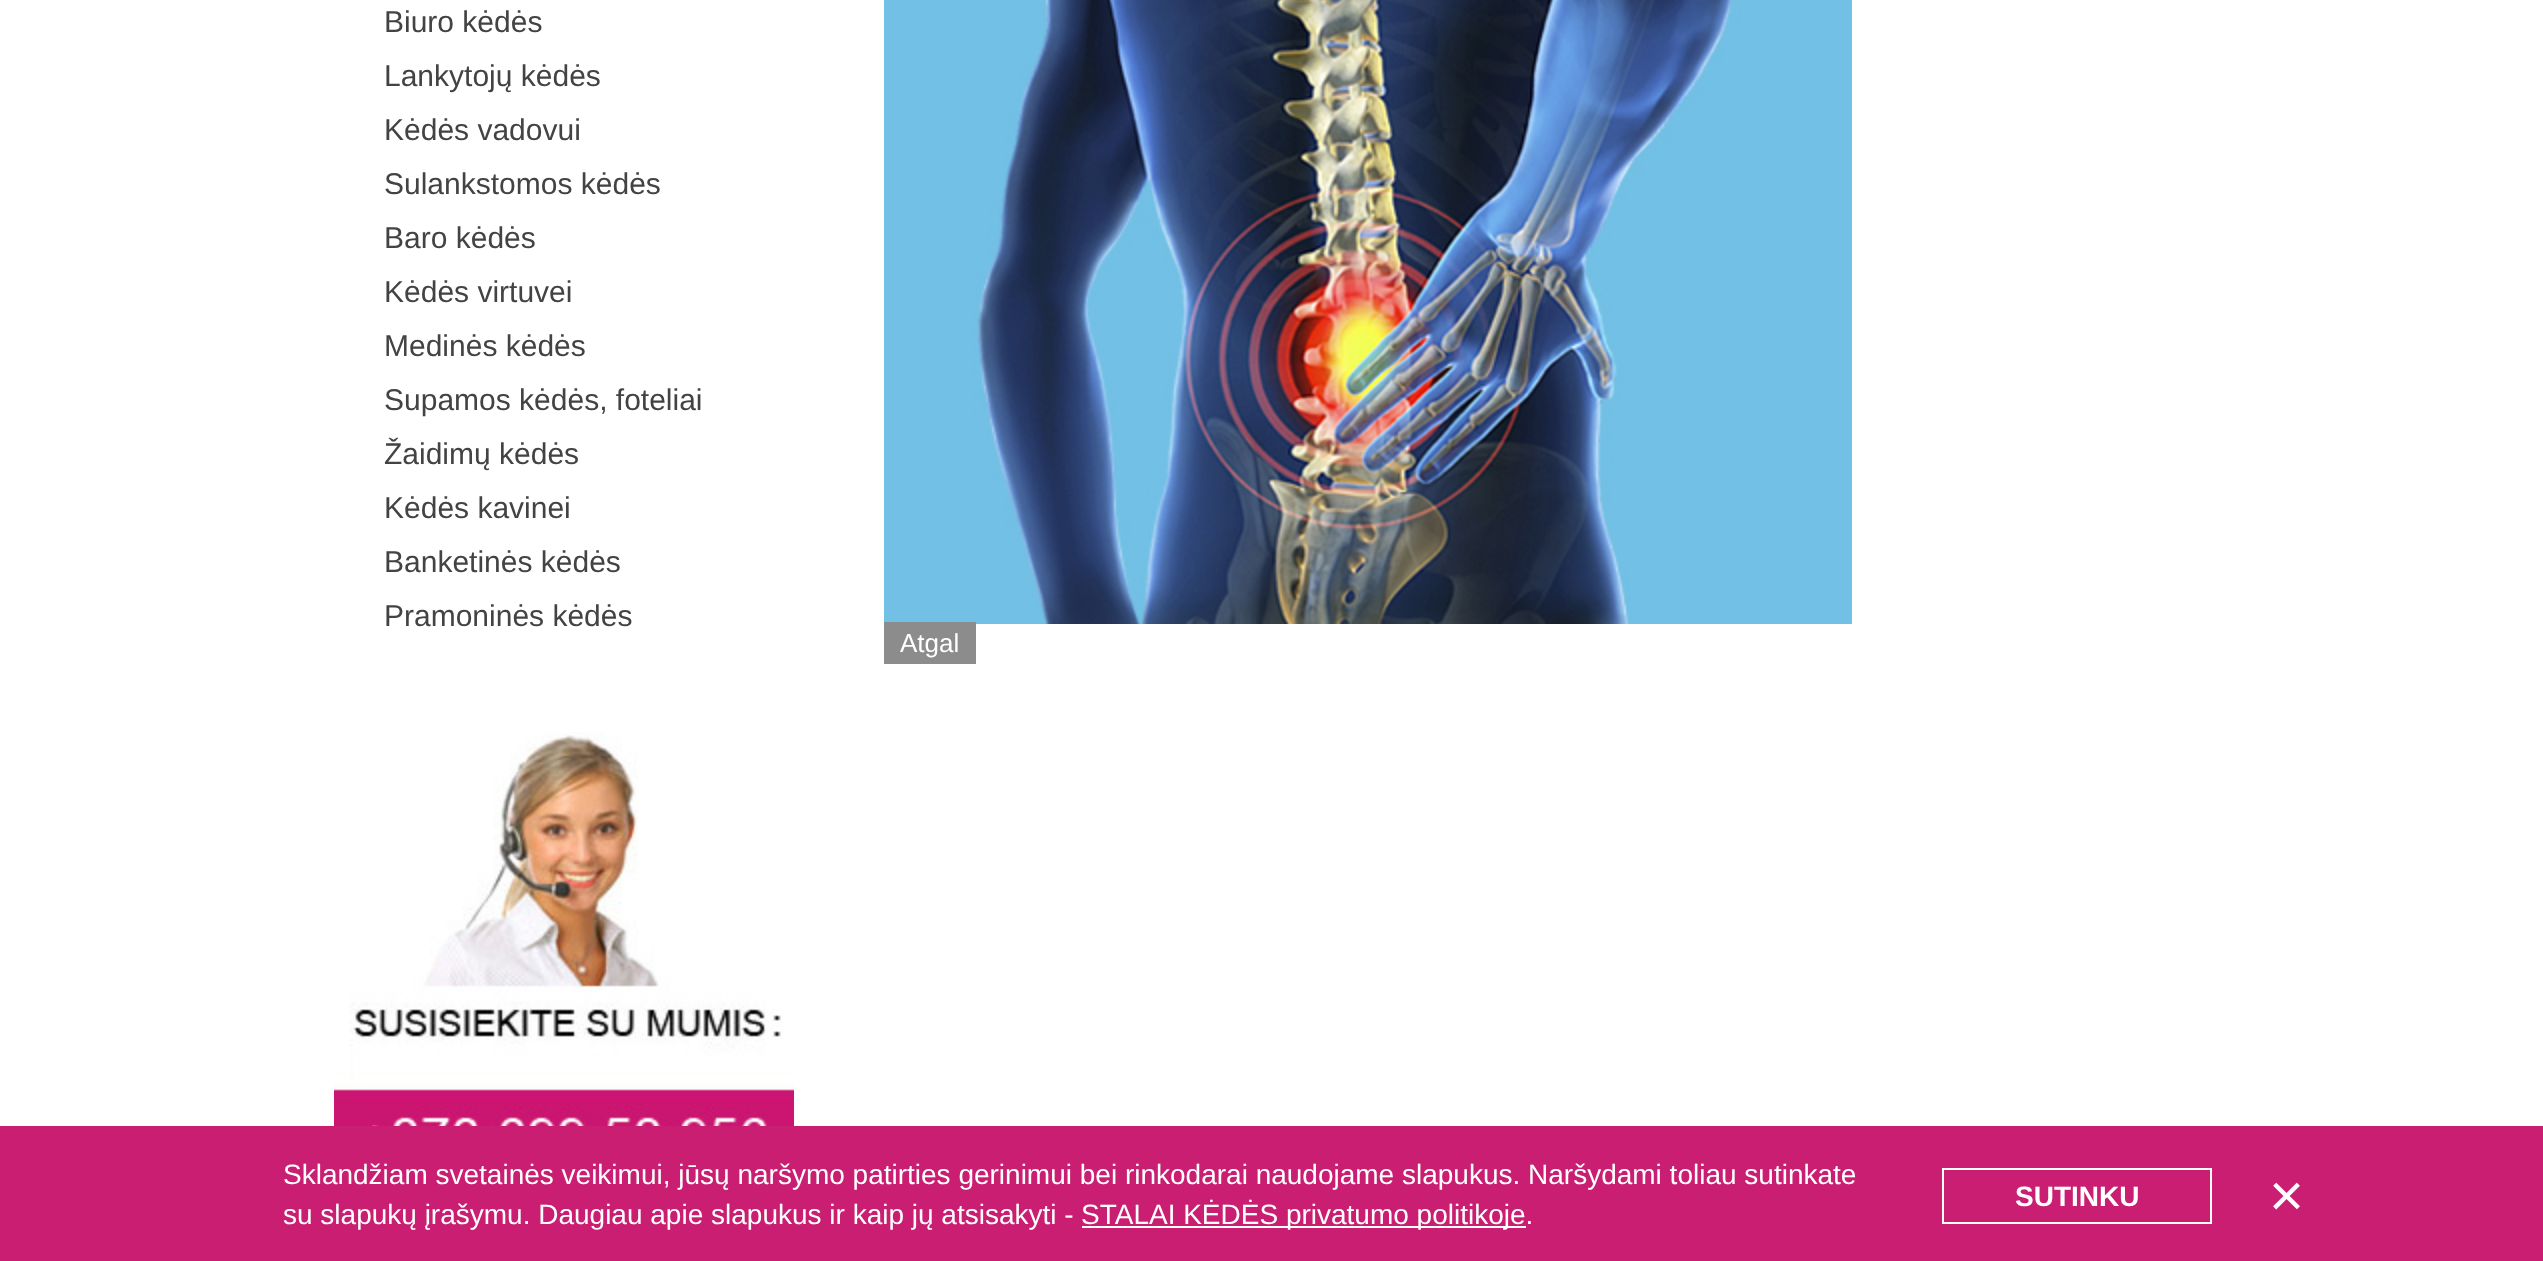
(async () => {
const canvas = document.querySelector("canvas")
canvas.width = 2543
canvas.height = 1261
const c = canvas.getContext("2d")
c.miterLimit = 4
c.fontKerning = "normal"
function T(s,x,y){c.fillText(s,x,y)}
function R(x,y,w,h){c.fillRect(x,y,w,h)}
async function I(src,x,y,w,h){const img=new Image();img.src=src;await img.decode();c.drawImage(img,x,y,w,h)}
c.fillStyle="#fff"
R(0,0,2543,1261)
c.font="30px Liberation Sans"
c.fillStyle="#434343"
T("Biuro kėdės",384,32)
T("Lankytojų kėdės",384,86)
T("Kėdės vadovui",384,140)
T("Sulankstomos kėdės",384,194)
T("Baro kėdės",384,248)
T("Kėdės virtuvei",384,302)
T("Medinės kėdės",384,356)
T("Supamos kėdės, foteliai",384,410)
T("Žaidimų kėdės",384,464)
T("Kėdės kavinei",384,518)
T("Banketinės kėdės",384,572)
T("Pramoninės kėdės",384,626)
await I("1.png",334,732,460,394)
await I("2.png",884,0,968,624)
c.fillStyle="#8c8c8c"
R(884,622,92,42)
c.font="26px Liberation Sans"
c.fillStyle="#fff"
T("Atgal",900,652)
c.fillStyle="#c91e71"
R(0,1126,2543,135)
c.font="28px Liberation Sans"
c.fillStyle="#fff"
T("Sklandžiam svetainės veikimui, jūsų naršymo patirties gerinimui bei rinkodarai naudojame slapukus. Naršydami toliau sutinkate",283,1184)
T("su slapukų įrašymu. Daugiau apie slapukus ir kaip jų atsisakyti -",283,1224)
R(1082,1226,444,2)
T("STALAI KĖDĖS privatumo politikoje.",1081,1224)
c.strokeStyle="#fff"
c.lineWidth=2
c.strokeRect(1943,1169,268,54)
c.font="bold 28px Liberation Sans"
T("SUTINKU",2015,1206)
c.font="60px Liberation Sans"
T("×",2269,1216)
})()
